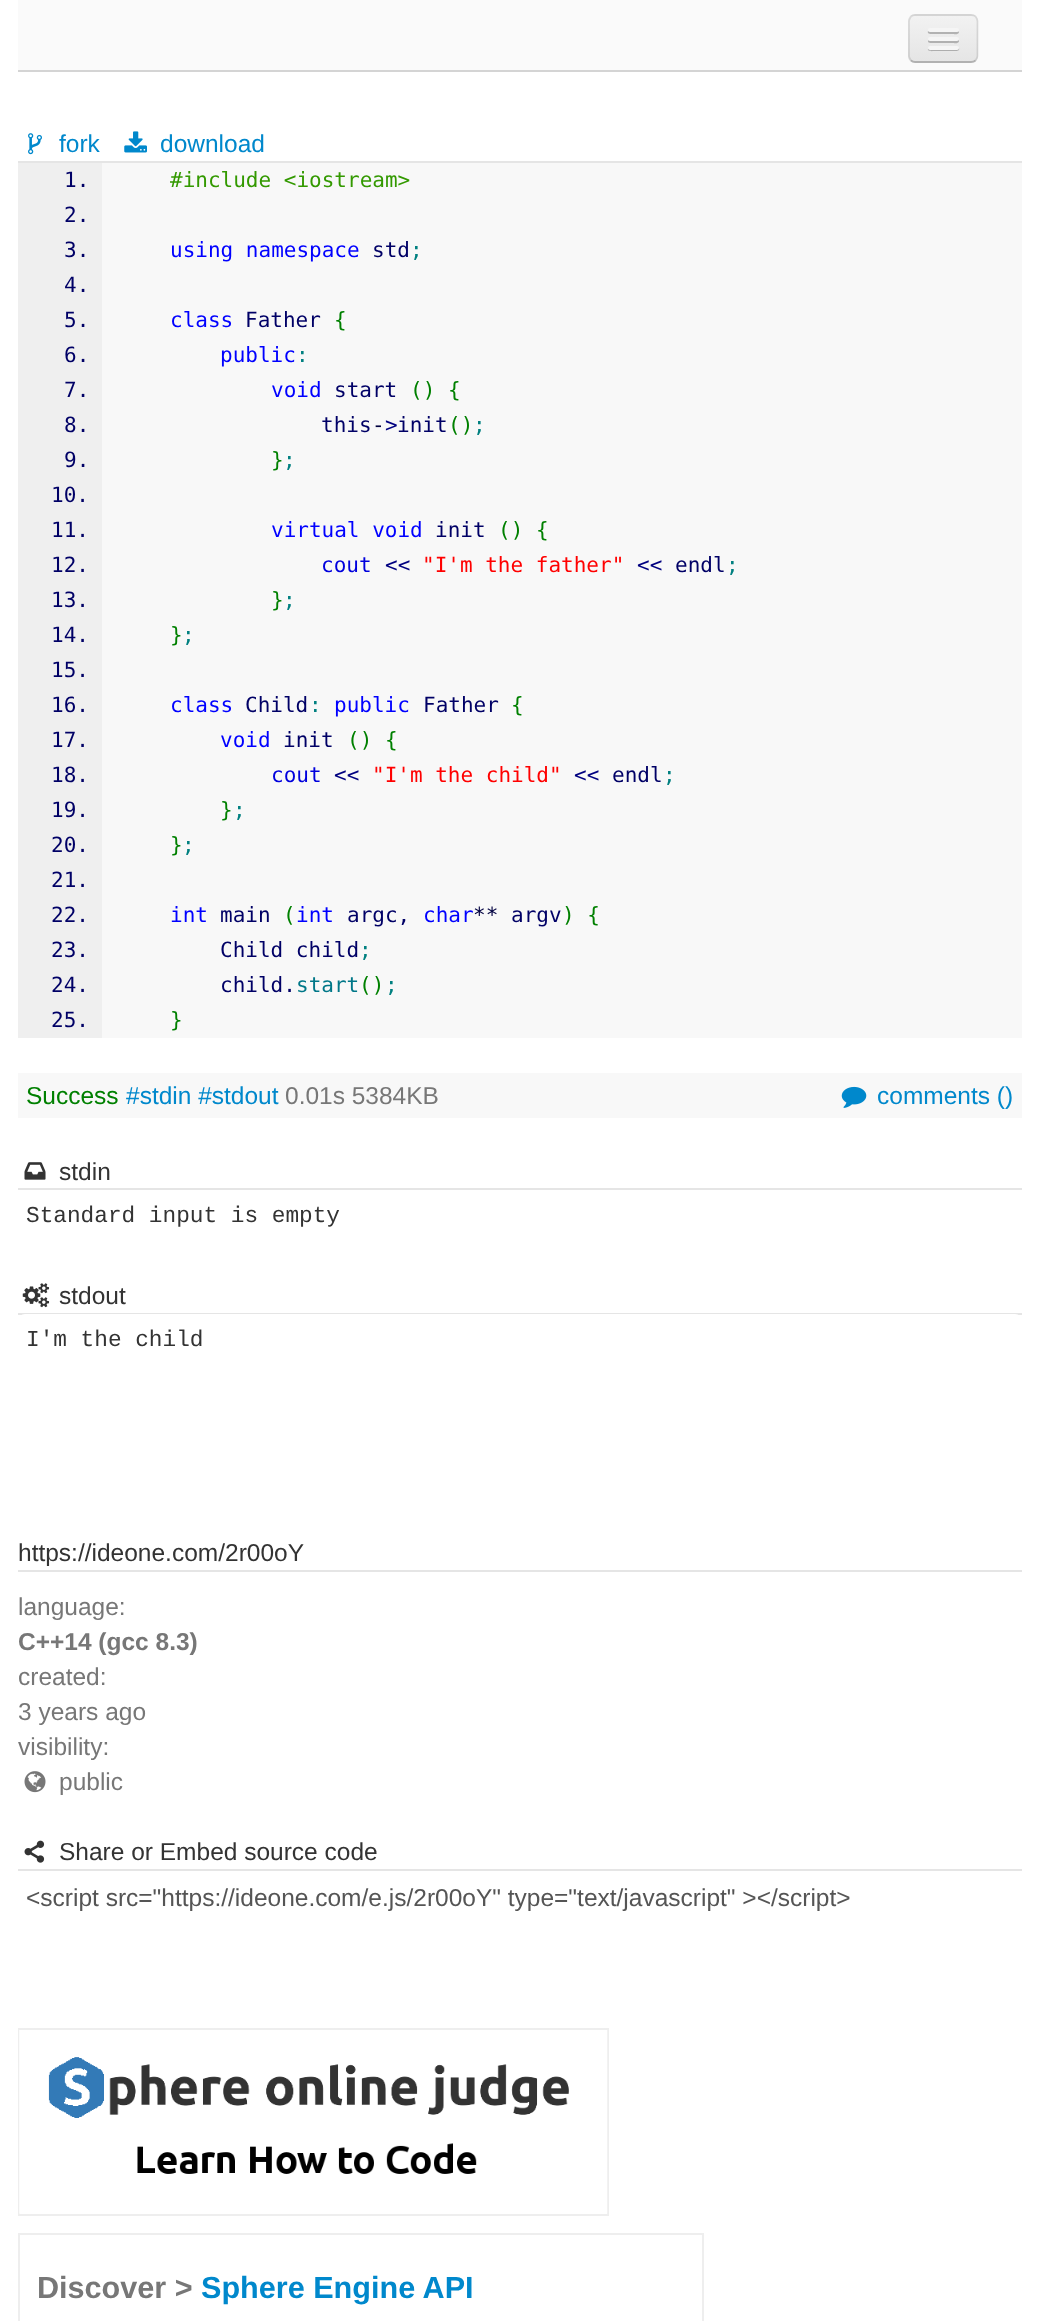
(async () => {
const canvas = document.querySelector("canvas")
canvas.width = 1039
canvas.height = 2321
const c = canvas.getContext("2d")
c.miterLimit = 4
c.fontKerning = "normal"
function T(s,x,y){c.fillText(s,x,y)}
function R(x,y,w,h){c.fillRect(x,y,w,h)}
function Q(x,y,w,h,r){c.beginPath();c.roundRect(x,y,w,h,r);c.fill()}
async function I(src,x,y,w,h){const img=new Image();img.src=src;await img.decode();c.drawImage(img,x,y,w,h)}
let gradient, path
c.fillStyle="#fff"
R(0,0,1039,2321)
c.fillStyle="#fafafa"
R(18,0,1004,70)
c.fillStyle="#d4d4d4"
R(18,70,1004,2)
c.fillStyle="#ededed"
Q(908,14,70,49,7)
c.save()
c.beginPath()
c.roundRect(908,14,70,49,7)
c.clip()
gradient = c.createLinearGradient(943,16,943,61)
gradient.addColorStop(0,"#f2f2f2")
gradient.addColorStop(1,"#e5e5e5")
c.fillStyle = gradient
R(908,16,70,45)
c.restore()
path = new Path2D("M975.5 60.5c-1 1-2.5 1.5-4.5 1.5h-56c-1.5 0-3-.5-4-1.5")
c.strokeStyle="#00000040"
c.lineWidth=1.8
c.stroke(path)
path = new Path2D("M911 60.5c-1-1.5-2-3-2-4.5v-35c0-1.5 1-3 2-4.5c1-1 2.5-1.5 4-1.5h56c2 0 3.5 .5 4.5 1.5c1 1.5 2 3 2 4.5v35c0 1.5-1 3-2 4.5")
c.strokeStyle="#0000001a"
c.stroke(path)
c.fillStyle="#b2b2b2"
path = new Path2D("M928 31c-1.5 4 5.5 3 6.5 3h18c1 0 6 1 6.5-1.5l-.5-1.5l-1 .5c-2.5 .5-28.5 .5-29.5-.5z")
c.fill(path)
c.fillStyle="#f5f5f5"
Q(928,28,31,4,2)
c.fillStyle="#b0b0b0"
path = new Path2D("M928.5 40c-2.5 4 5.5 3 6 3h18c1 0 6 1 6.5-1.5c0-.5 0-1.5-.5-2l-1 .5c-2.5 .5-28.5 .5-29 0z")
c.fill(path)
c.fillStyle="#f5f5f5"
Q(928,37,31,4,2)
c.fillStyle="#aeaeae"
path = new Path2D("M928 48.5c-1 3.5 5.5 2.5 6.5 2.5h18c1 0 8 1 6.5-3l-1.5 1h-28.5z")
c.fill(path)
c.fillStyle="#f5f5f5"
Q(928,46,31,4,2)
c.fillStyle="#e5e5e5"
R(18,161,1004,2)
await I("1.png",28,133,14,22)
c.font="24.5px Liberation Sans"
c.fillStyle="#08c"
T("fork",59,152)
await I("2.png",124,131,23,22)
T("download",160,152)
c.fillStyle="#efefef"
R(18,163,84,875)
c.fillStyle="#f8f8f8"
R(102,163,920,875)
c.font="21px DejaVu Sans Mono"
c.fillStyle="#006"
T("1.",64,187)
c.fillStyle="#390"
T("#include <iostream>",170,187)
c.fillStyle="#006"
T("2.",64,222)
T("3.",64,257)
c.fillStyle="#00f"
T("using namespace",170,257)
c.fillStyle="#006"
T("std",372,257)
c.fillStyle="#008080"
T(";",410,257)
c.fillStyle="#006"
T("4.",64,292)
T("5.",64,327)
c.fillStyle="#00f"
T("class",170,327)
c.fillStyle="#006"
T("Father",245,327)
c.fillStyle="#008000"
T("{",334,327)
c.fillStyle="#006"
T("6.",64,362)
c.fillStyle="#00f"
T("public",220,362)
c.fillStyle="#008080"
T(":",296,362)
c.fillStyle="#006"
T("7.",64,397)
c.fillStyle="#00f"
T("void",271,397)
c.fillStyle="#006"
T("start",334,397)
c.fillStyle="#008000"
T("() {",410,397)
c.fillStyle="#006"
T("8.",64,432)
T("this",321,432)
c.fillStyle="#000040"
T("-",372,432)
c.fillStyle="#000080"
T(">",385,432)
c.fillStyle="#006"
T("init",397,432)
c.fillStyle="#008000"
T("()",448,432)
c.fillStyle="#008080"
T(";",473,432)
c.fillStyle="#006"
T("9.",64,467)
c.fillStyle="#008000"
T("}",271,467)
c.fillStyle="#008080"
T(";",283,467)
c.fillStyle="#006"
T("10.",51,502)
T("11.",51,537)
c.fillStyle="#00f"
T("virtual void",271,537)
c.fillStyle="#006"
T("init",435,537)
c.fillStyle="#008000"
T("() {",498,537)
c.fillStyle="#006"
T("12.",51,572)
c.fillStyle="#00d"
T("cout",321,572)
c.fillStyle="#000080"
T("<<",385,572)
c.fillStyle="#f00"
T("\"I'm the father\"",422,572)
c.fillStyle="#000080"
T("<<",637,572)
c.fillStyle="#006"
T("endl",675,572)
c.fillStyle="#008080"
T(";",726,572)
c.fillStyle="#006"
T("13.",51,607)
c.fillStyle="#008000"
T("}",271,607)
c.fillStyle="#008080"
T(";",283,607)
c.fillStyle="#006"
T("14.",51,642)
c.fillStyle="#008000"
T("}",170,642)
c.fillStyle="#008080"
T(";",182,642)
c.fillStyle="#006"
T("15.",51,677)
T("16.",51,712)
c.fillStyle="#00f"
T("class",170,712)
c.fillStyle="#006"
T("Child",245,712)
c.fillStyle="#008080"
T(":",309,712)
c.fillStyle="#00f"
T("public",334,712)
c.fillStyle="#006"
T("Father",423,712)
c.fillStyle="#008000"
T("{",511,712)
c.fillStyle="#006"
T("17.",51,747)
c.fillStyle="#00f"
T("void",220,747)
c.fillStyle="#006"
T("init",283,747)
c.fillStyle="#008000"
T("() {",347,747)
c.fillStyle="#006"
T("18.",51,782)
c.fillStyle="#00d"
T("cout",271,782)
c.fillStyle="#000080"
T("<<",334,782)
c.fillStyle="#f00"
T("\"I'm the child\"",372,782)
c.fillStyle="#000080"
T("<<",574,782)
c.fillStyle="#006"
T("endl",612,782)
c.fillStyle="#008080"
T(";",663,782)
c.fillStyle="#006"
T("19.",51,817)
c.fillStyle="#008000"
T("}",220,817)
c.fillStyle="#008080"
T(";",233,817)
c.fillStyle="#006"
T("20.",51,852)
c.fillStyle="#008000"
T("}",170,852)
c.fillStyle="#008080"
T(";",182,852)
c.fillStyle="#006"
T("21.",51,887)
T("22.",51,922)
c.fillStyle="#00f"
T("int",170,922)
c.fillStyle="#006"
T("main",220,922)
c.fillStyle="#008000"
T("(",283,922)
c.fillStyle="#00f"
T("int",296,922)
c.fillStyle="#006"
T("argc,",347,922)
c.fillStyle="#00f"
T("char",423,922)
c.fillStyle="#000040"
T("**",473,922)
c.fillStyle="#006"
T("argv",511,922)
c.fillStyle="#008000"
T(") {",562,922)
c.fillStyle="#006"
T("23.",51,957)
T("Child child",220,957)
c.fillStyle="#008080"
T(";",359,957)
c.fillStyle="#006"
T("24.",51,992)
T("child.",220,992)
c.fillStyle="#078"
T("start",296,992)
c.fillStyle="#008000"
T("()",359,992)
c.fillStyle="#008080"
T(";",385,992)
c.fillStyle="#006"
T("25.",51,1027)
c.fillStyle="#008000"
T("}",170,1027)
c.fillStyle="#f8f8f8"
R(18,1073,1004,45)
c.font="24.5px Liberation Sans"
c.fillStyle="#008000"
T("Success",26,1104)
c.fillStyle="#08c"
T("#stdin #stdout",126,1104)
c.fillStyle="#777"
T("0.01s 5384KB",285,1104)
await I("3.png",841,1086,26,22)
c.fillStyle="#08c"
T("comments ()",877,1104)
c.fillStyle="#e5e5e5"
R(18,1188,1004,2)
await I("4.png",24,1162,22,18)
c.fillStyle="#333"
T("stdin",59,1180)
c.font="22.75px Liberation Mono"
T("Standard input is empty",26,1222)
c.fillStyle="#e5e5e5"
R(18,1313,1004,2)
await I("5.png",22,1283,28,25)
c.font="24.5px Liberation Sans"
c.fillStyle="#333"
T("stdout",59,1304)
c.fillStyle="#fff"
Q(18,1314,1004,53,7)
c.font="22.75px Liberation Mono"
c.fillStyle="#333"
T("I'm the child",26,1346)
c.fillStyle="#e5e5e5"
R(18,1570,1004,2)
c.font="24.5px Liberation Sans"
c.fillStyle="#333"
T("https://ideone.com/2r00oY",18,1561)
c.fillStyle="#777"
T("language:",18,1615)
c.font="bold 24.5px Liberation Sans"
T("C++14 (gcc 8.3)",18,1650)
c.font="24.5px Liberation Sans"
T("created:",18,1685)
T("3 years ago",18,1720)
T("visibility:",18,1755)
await I("6.png",24,1771,22,22)
T("public",59,1790)
c.fillStyle="#e5e5e5"
R(18,1869,1004,2)
await I("7.png",24,1840,21,23)
c.fillStyle="#333"
T("Share or Embed source code",59,1860)
c.fillStyle="#555"
T("<script src=\"https://ideone.com/e.js/2r00oY\" type=\"text/javascript\" ><\/script>",26,1906)
c.strokeStyle="#eee"
c.lineWidth=2
c.strokeRect(19,2029,589,186)
await I("8.png",19,2030,589,184)
c.strokeRect(19,2234,684,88)
c.font="bold 30.6px Liberation Sans"
c.fillStyle="#777"
T("Discover >",37,2298)
c.fillStyle="#08c"
T("Sphere Engine API",201,2298)
})()
